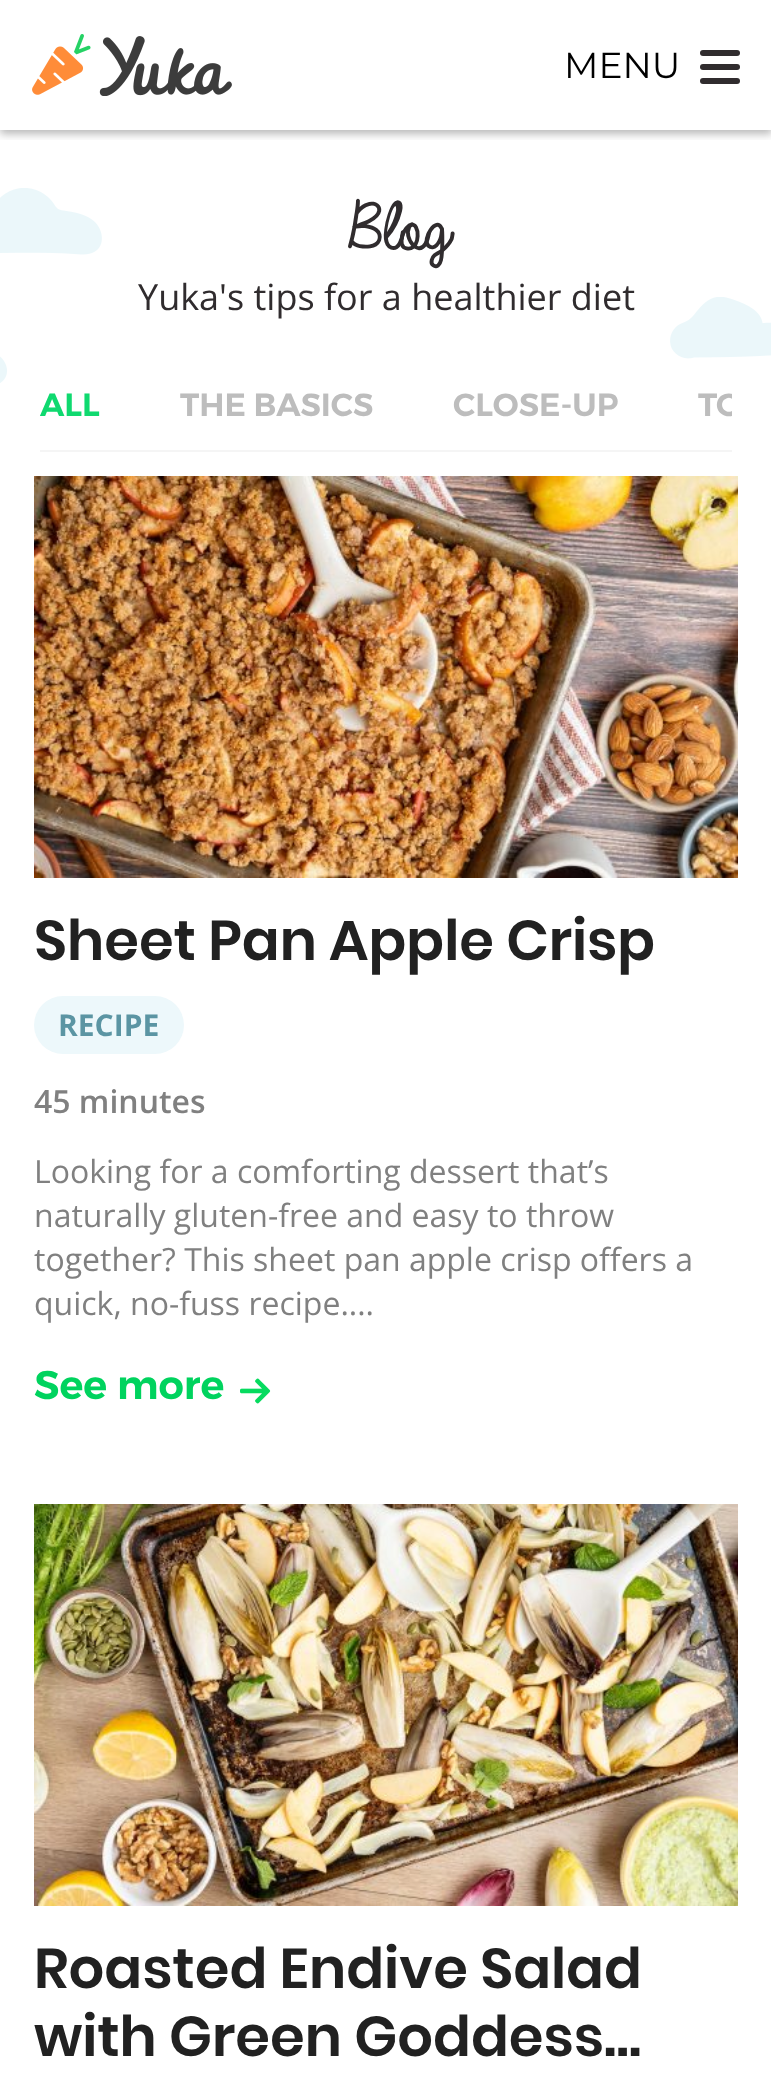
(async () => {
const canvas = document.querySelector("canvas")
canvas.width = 771
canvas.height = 2091
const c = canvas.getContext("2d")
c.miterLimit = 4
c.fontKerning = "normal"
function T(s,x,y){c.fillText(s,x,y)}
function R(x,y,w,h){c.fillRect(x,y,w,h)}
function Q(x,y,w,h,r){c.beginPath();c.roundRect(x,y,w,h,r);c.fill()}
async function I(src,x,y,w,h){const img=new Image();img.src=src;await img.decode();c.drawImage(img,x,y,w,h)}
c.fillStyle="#fff"
R(0,0,771,2091)
c.save()
c.beginPath()
c.rect(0,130,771,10)
c.clip()
c.fillStyle="#00000047"
c.filter="blur(4px)"
c.beginPath()
c.rect(0,4,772,130)
c.fill()
c.filter="none"
c.restore()
await I("1.png",32,34,200,62)
c.font="36px Montserrat"
c.fillStyle="#000"
T("MENU",564,78)
c.fillStyle="#302c2e"
Q(700,50,40,6,3)
Q(700,64,40,6,3)
Q(700,78,40,6,3)
await I("2.png",0,188,102,195)
c.font="500 72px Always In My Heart"
T("Blog",337,248)
c.font="36px Open Sans"
T("Yuka's tips for a healthier diet",138,310)
await I("3.png",670,297,101,62)
c.fillStyle="#f5f5f5"
R(40,450,692,2)
c.font="600 32px Montserrat"
c.fillStyle="#0fd96f"
T("ALL",40,416)
c.fillStyle="#bdbdbd"
T("THE BASICS",180,416)
T("CLOSE-UP",453,416)
c.save()
c.beginPath()
c.rect(40,362,692,88)
c.clip()
T("TO",698,416)
c.restore()
await I("4.png",34,476,704,402)
c.font="600 56px Poppins"
c.fillStyle="#212121"
T("Sheet Pan Apple Crisp",34,960)
c.fillStyle="#edf8fb"
Q(34,996,150,58,29)
c.font="bold 30px Open Sans"
c.fillStyle="#5b95a3"
T("RECIPE",58,1036)
c.font="600 32px Open Sans"
c.fillStyle="#808080"
T("45 minutes",34,1113)
c.font="32px Open Sans"
T("Looking for a comforting dessert that’s",34,1183)
T("naturally gluten-free and easy to throw",34,1227)
T("together? This sheet pan apple crisp offers a",34,1271)
T("quick, no-fuss recipe....",34,1315)
c.font="600 40px Montserrat"
c.fillStyle="#00d35e"
T("See more",34,1399)
await I("5.png",240,1378,31,26)
await I("6.png",34,1504,704,402)
c.font="600 56px Poppins"
c.fillStyle="#212121"
T("Roasted Endive Salad",34,1988)
T("with Green Goddess…",34,2056)
})()
